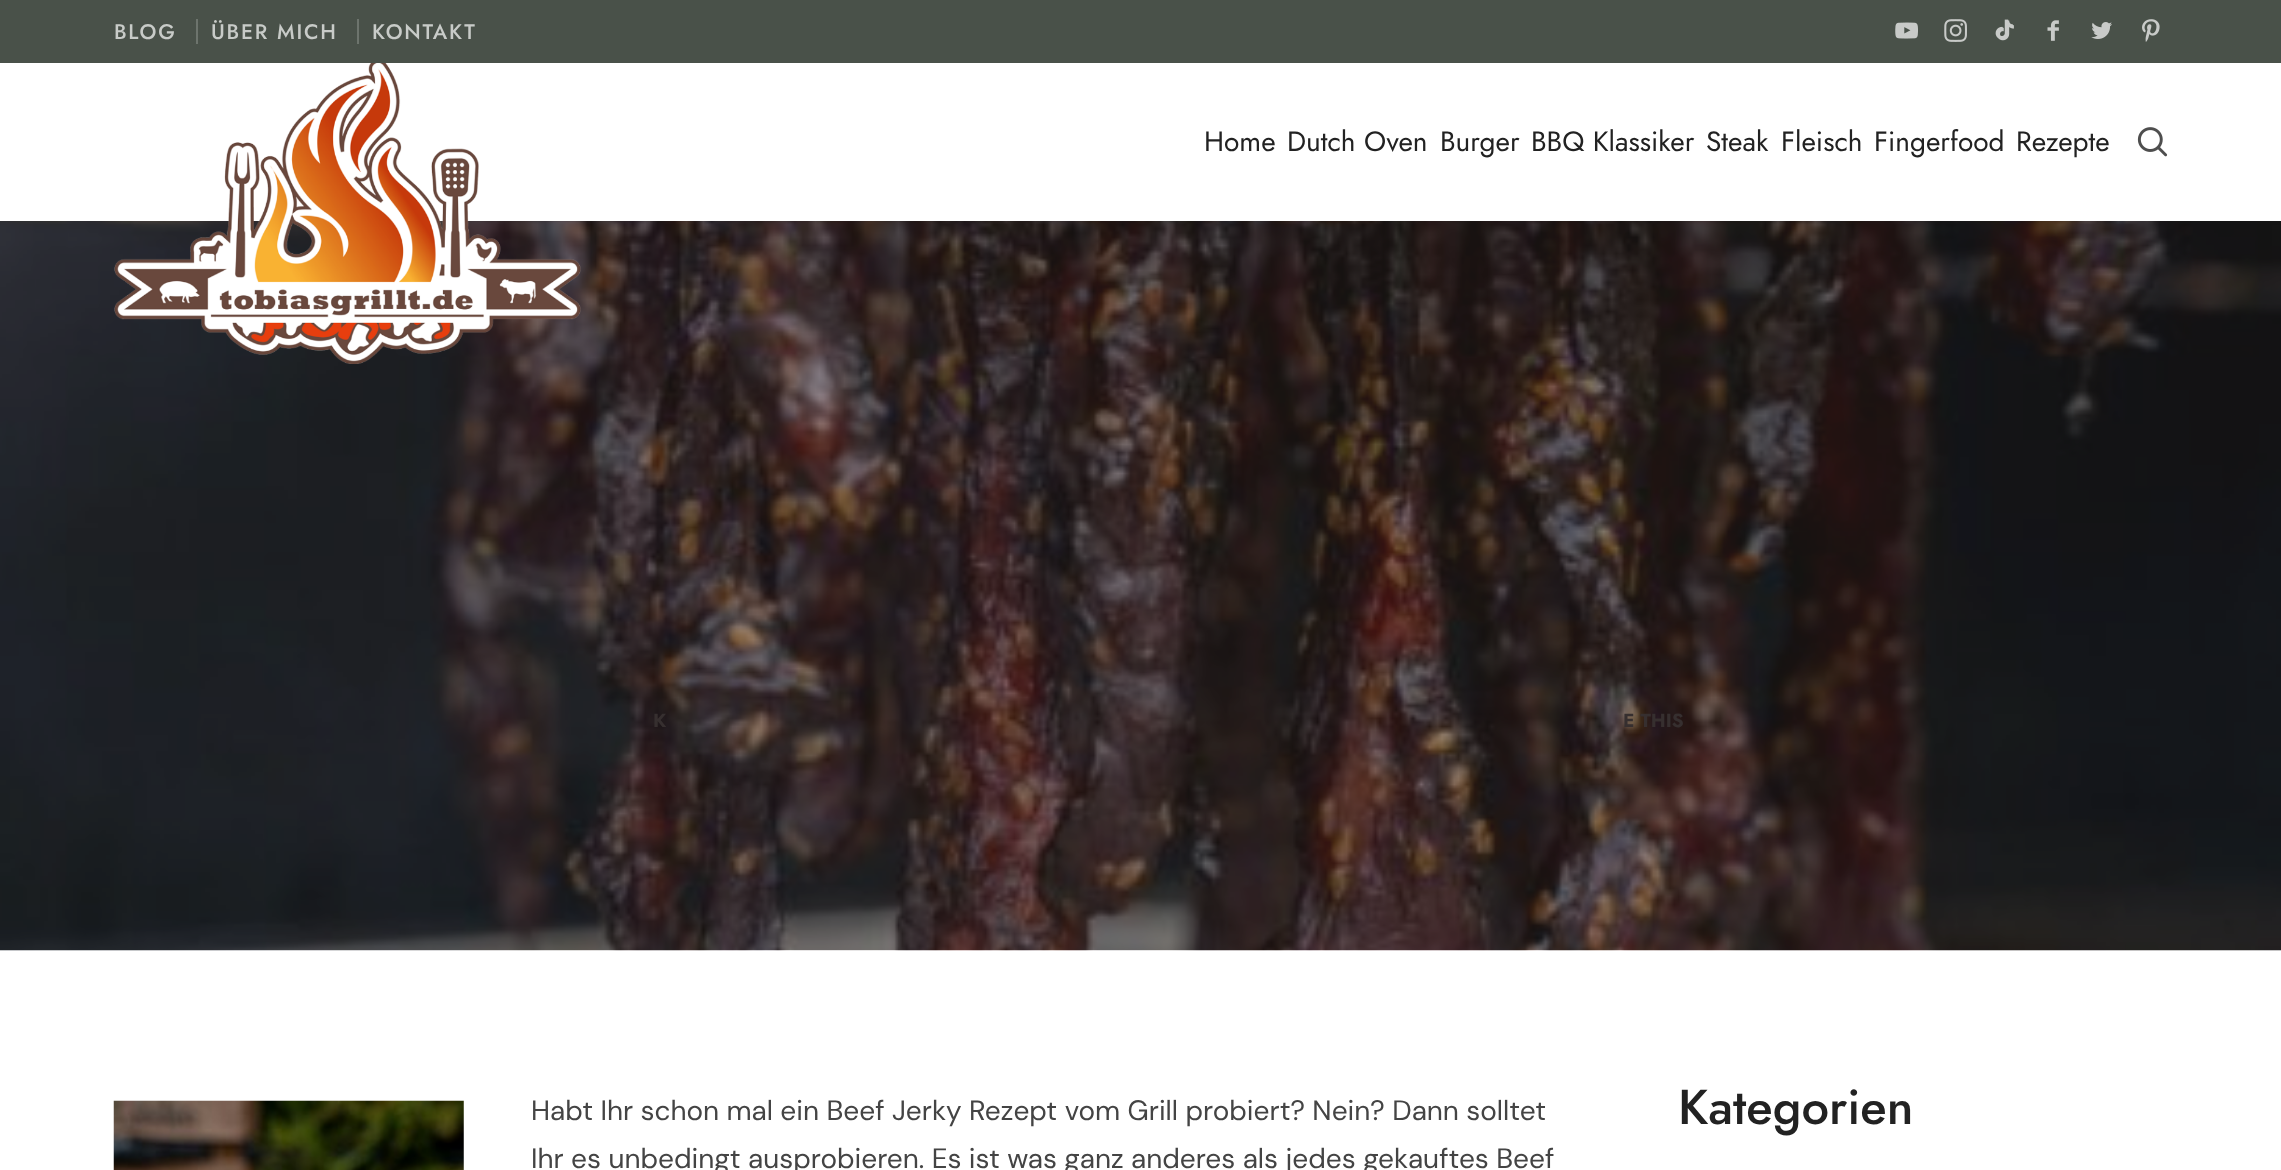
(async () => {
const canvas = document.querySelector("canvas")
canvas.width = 2281
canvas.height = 1170
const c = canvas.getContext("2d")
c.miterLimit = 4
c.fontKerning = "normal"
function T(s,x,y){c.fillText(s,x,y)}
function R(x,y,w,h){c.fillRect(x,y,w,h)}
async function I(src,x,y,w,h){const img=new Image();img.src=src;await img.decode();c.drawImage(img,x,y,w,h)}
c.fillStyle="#fff"
R(0,0,2281,1170)
c.fillStyle="#495149"
R(0,0,2281,63)
c.letterSpacing="1.75px"
c.font="500 21px Jost"
c.fillStyle="#c8cbc8"
T("BLOG",114,39)
c.fillStyle="#6d746d"
R(196,19,2,25)
c.fillStyle="#c8cbc8"
T("ÜBER MICH",211,39)
c.fillStyle="#6d746d"
R(357,19,2,25)
c.fillStyle="#c8cbc8"
T("KONTAKT",372,39)
await I("1.png",1895,22,23,17)
await I("2.png",1944,19,23,23)
await I("3.png",1995,19,19,22)
await I("4.png",2047,20,12,21)
await I("5.png",2091,22,21,17)
await I("6.png",2142,19,18,23)
await I("9.png",0,221,2281,730)
c.fillStyle="#22222214"
R(397,221,1696,1)
await I("7.png",114,63,467,301)
c.letterSpacing="0px"
c.font="28px Jost"
c.fillStyle="#222"
T("Home",1204,151)
T("Dutch Oven",1287,151)
T("Burger",1440,151)
T("BBQ Klassiker",1531,151)
T("Steak",1706,151)
T("Fleisch",1781,151)
T("Fingerfood",1874,151)
T("Rezepte",2016,151)
await I("8.png",2137,127,31,30)
c.letterSpacing="1.75px"
c.font="bold 19px Jost"
c.fillStyle="#362f2f"
T("K",653,727)
c.letterSpacing="0px"
T("E THIS",1623,727)
await I("10.png",113,1100,351,70)
c.font="28px DM Sans"
c.fillStyle="#444"
T("Habt Ihr schon mal ein Beef Jerky Rezept vom Grill probiert? Nein? Dann solltet",531,1120)
T("Ihr es unbedingt ausprobieren. Es ist was ganz anderes als jedes gekauftes Beef",531,1168)
c.font="500 49px Jost"
c.fillStyle="#222"
T("Kategorien",1678,1124)
})()
